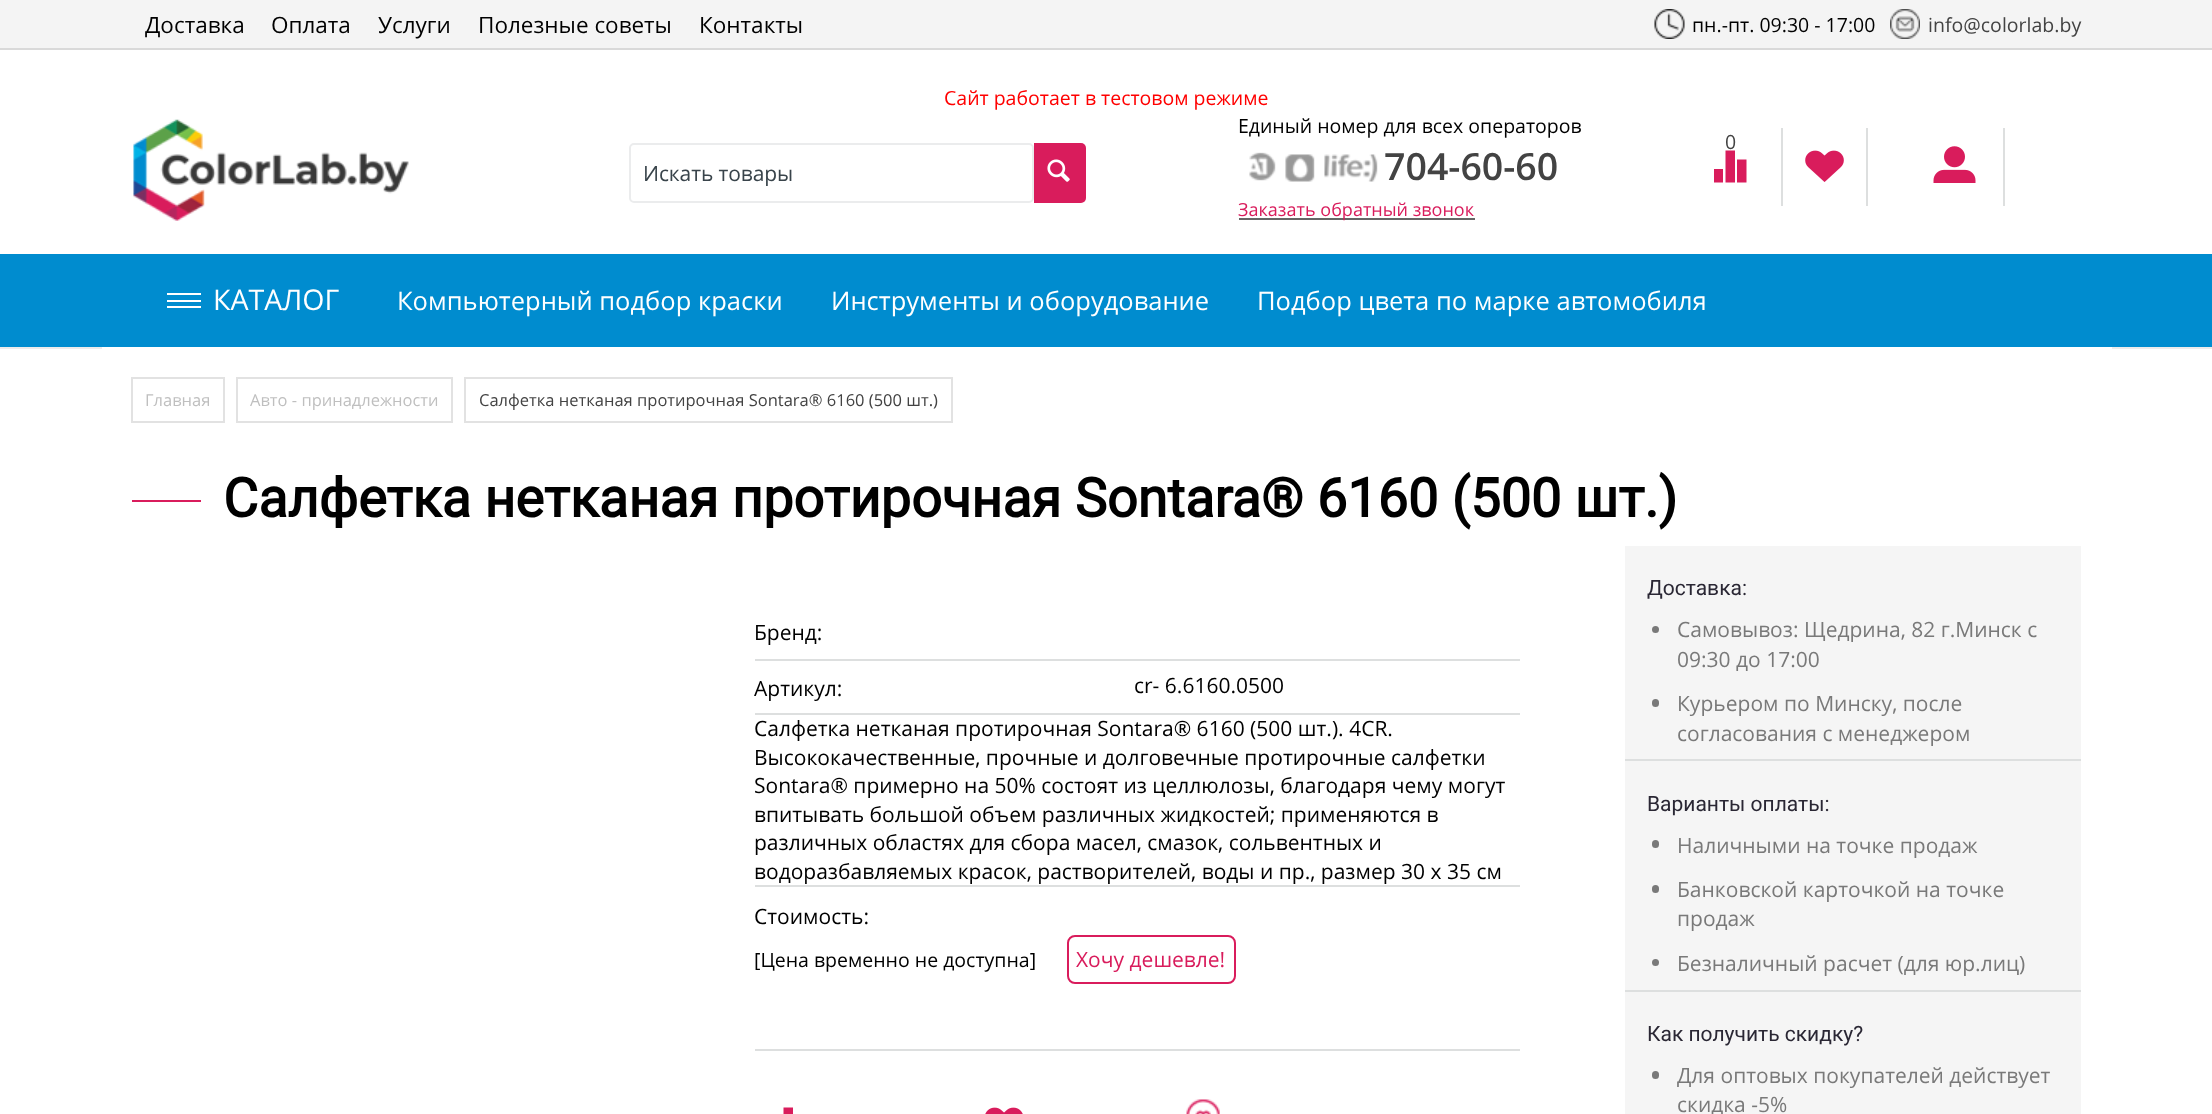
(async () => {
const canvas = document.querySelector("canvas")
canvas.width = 2212
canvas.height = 1114
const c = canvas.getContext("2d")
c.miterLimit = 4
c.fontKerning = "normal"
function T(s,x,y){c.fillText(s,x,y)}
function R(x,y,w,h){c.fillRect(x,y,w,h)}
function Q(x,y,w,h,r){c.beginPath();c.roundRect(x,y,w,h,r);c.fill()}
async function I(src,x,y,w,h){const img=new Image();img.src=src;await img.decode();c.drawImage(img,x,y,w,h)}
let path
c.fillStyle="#fff"
R(0,0,2212,1114)
c.fillStyle="#f4f4f4"
R(0,0,2212,48)
c.fillStyle="#d9d9d9"
R(0,48,2212,2)
c.font="22.5px Open Sans"
c.fillStyle="#000"
T("Доставка",145,33)
T("Оплата",271,33)
T("Услуги",378,33)
T("Полезные советы",478,33)
T("Контакты",699,33)
await I("1.png",1654,9,31,30)
c.font="19.5px Open Sans"
T("пн.-пт. 09:30 - 17:00",1692,32)
await I("2.png",1890,9,30,30)
c.fillStyle="#434343"
T("info@colorlab.by",1928,32)
c.fillStyle="#ececec"
R(0,347,2212,2)
c.fillStyle="#f00"
T("Сайт работает в тестовом режиме",944,105)
await I("3.png",133,119,276,102)
c.fillStyle="#000"
T("Единый номер для всех операторов",1238,133)
await I("4.png",1249,152,129,30)
c.font="600 37.5px Open Sans"
c.fillStyle="#434343"
T("704-60-60",1384,180)
c.fillStyle="#666"
R(1239,218,236,2)
c.font="18px Open Sans"
c.fillStyle="#d91c5c"
T("Заказать обратный звонок",1238,216)
c.font="19.5px Open Sans"
c.fillStyle="#434343"
T("0",1725,149)
c.fillStyle="#d91c5c"
path = new Path2D("M1714 182.5v-13.5h9v13.5zm11.5 0v-32h9.5v32zm11.5 0v-23h9.5v23z")
c.fill(path)
c.fillStyle="#dddfdf"
R(1781,128,2,78)
await I("5.png",1805,150,39,32)
R(1866,128,2,78)
await I("6.png",1933,146,43,37)
R(2003,128,2,78)
c.beginPath()
c.roundRect(630,144,403,58,4)
c.strokeStyle="#ebeced"
c.lineWidth=2
c.stroke()
c.letterSpacing="-0.1px"
c.font="21px Open Sans"
c.fillStyle="#39444b"
T("Искать товары",643,181)
c.fillStyle="#d91c5c"
c.beginPath()
c.roundRect(1034,143,52,60,[0,5,5,0])
c.fill()
await I("7.png",1047,159,23,23)
c.fillStyle="#008ccf"
R(0,254,2212,93)
c.fillStyle="#fff"
R(167,293,34,2)
R(167,300,34,2)
R(167,306,34,2)
c.letterSpacing="0px"
c.font="28.5px Open Sans"
T("КАТАЛОГ",213,310)
c.font="25.5px Open Sans"
T("Компьютерный подбор краски",397,310)
T("Инструменты и оборудование",831,310)
T("Подбор цвета по марке автомобиля",1257,310)
R(102,347,2010,2)
c.strokeStyle="#e2e2e2"
c.strokeRect(132,378,92,44)
c.font="16.5px Open Sans"
c.fillStyle="#bfbfbf"
T("Главная",145,406)
c.strokeRect(237,378,215,44)
T("Авто - принадлежности",250,406)
c.strokeRect(465,378,487,44)
c.fillStyle="#434343"
T("Салфетка нетканая протирочная Sontara® 6160 (500 шт.)",479,406)
c.fillStyle="#d91c5c"
R(132,500,69,2)
c.font="bold 54px Roboto"
c.fillStyle="#000"
T("Салфетка нетканая протирочная Sontara® 6160 (500 шт.)",223,517)
c.fillStyle="#dddfdf"
R(755,659,765,2)
c.font="21px Open Sans"
c.fillStyle="#000"
T("Бренд:",754,640)
c.fillStyle="#dddfdf"
R(755,713,765,2)
c.fillStyle="#000"
T("Артикул:",754,696)
T("cr- 6.6160.0500",1134,693)
c.fillStyle="#dddfdf"
R(755,885,765,2)
c.fillStyle="#000"
T("Салфетка нетканая протирочная Sontara® 6160 (500 шт.). 4CR.",754,736)
T("Высококачественные, прочные и долговечные протирочные салфетки",754,765)
T("Sontara® примерно на 50% состоят из целлюлозы, благодаря чему могут",754,793)
T("впитывать большой объем различных жидкостей; применяются в",754,822)
T("различных областях для сбора масел, смазок, сольвентных и",754,850)
T("водоразбавляемых красок, растворителей, воды и пр., размер 30 х 35 см",754,879)
T("Стоимость:",754,924)
c.font="19.5px Open Sans"
T("[Цена временно не доступна]",754,967)
c.beginPath()
c.roundRect(1068,936,167,47,7)
c.strokeStyle="#d91c5c"
c.stroke()
c.font="21px Open Sans"
c.fillStyle="#d91c5c"
T("Хочу дешевле!",1076,967)
c.fillStyle="#dddfdf"
R(755,1049,765,2)
c.fillStyle="#d91c5c"
path = new Path2D("M772 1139.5v-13.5h9v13.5zm11.5 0v-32h9.5v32zm11.5 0v-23h9.5v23z")
c.fill(path)
await I("8.png",985,1107,38,7)
await I("9.png",1186,1099,34,15)
c.fillStyle="#f5f5f5"
R(1625,546,456,568)
c.fillStyle="#dddfdf"
R(1625,759,456,2)
c.font="21px Roboto"
c.fillStyle="#2a2734"
T("Доставка:",1647,595)
c.fillStyle="#797979"
c.beginPath()
c.arc(1655.5,629.5,3.5,0,7)
c.fill()
c.font="21px Open Sans"
T("Самовывоз: Щедрина, 82 г.Минск с",1677,637)
T("09:30 до 17:00",1677,667)
Q(1652,699,7,8,3.5)
T("Курьером по Минску, после",1677,711)
T("согласования с менеджером",1677,741)
c.fillStyle="#dddfdf"
R(1625,990,456,2)
c.font="21px Roboto"
c.fillStyle="#2a2734"
T("Варианты оплаты:",1647,811)
c.fillStyle="#797979"
Q(1652,840,7,8,3.5)
c.font="21px Open Sans"
T("Наличными на точке продаж",1677,853)
Q(1652,885,7,8,3.5)
T("Банковской карточкой на точке",1677,897)
T("продаж",1677,926)
c.beginPath()
c.arc(1655.5,962.5,3.5,0,7)
c.fill()
T("Безналичный расчет (для юр.лиц)",1677,971)
c.font="21px Roboto"
c.fillStyle="#2a2734"
T("Как получить скидку?",1647,1041)
c.fillStyle="#797979"
Q(1652,1071,7,8,3.5)
c.font="21px Open Sans"
T("Для оптовых покупателей действует",1677,1083)
T("скидка -5%",1677,1112)
})()
